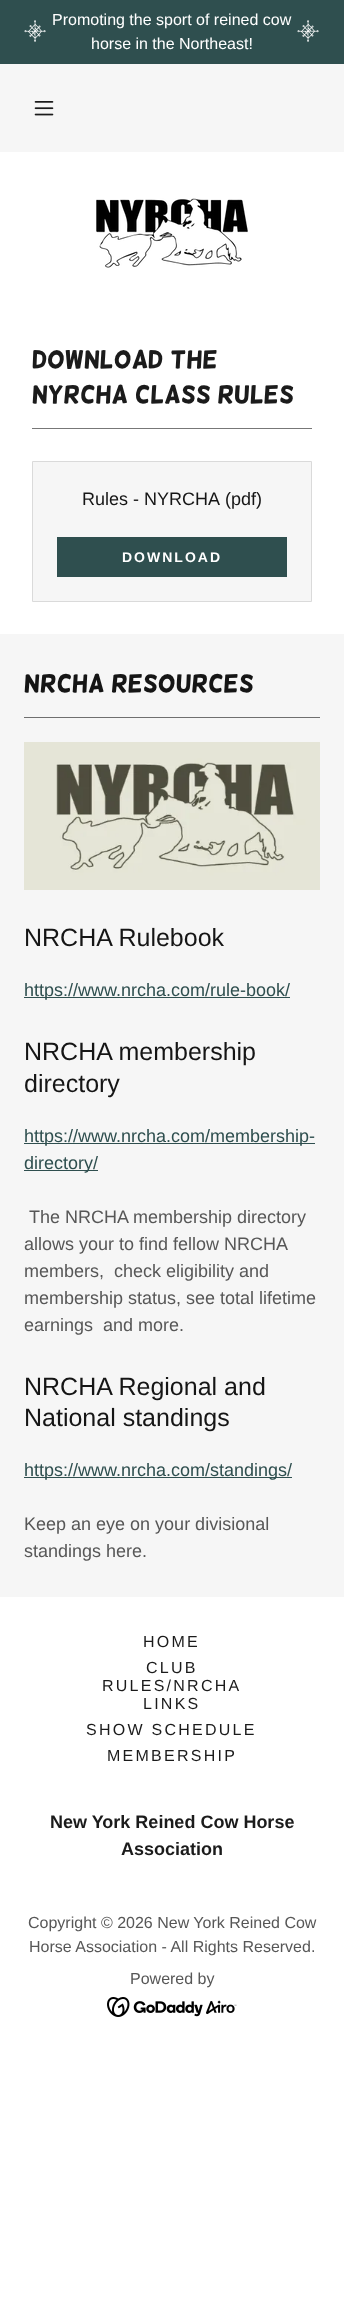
(async () => {
const canvas = document.querySelector("canvas")
canvas.width = 344
canvas.height = 2315
const c = canvas.getContext("2d")
c.miterLimit = 4
c.fontKerning = "normal"
function T(s,x,y){c.fillText(s,x,y)}
function R(x,y,w,h){c.fillRect(x,y,w,h)}
async function I(src,x,y,w,h){const img=new Image();img.src=src;await img.decode();c.drawImage(img,x,y,w,h)}
c.fillStyle="#fff"
R(0,0,344,2315)
c.fillStyle="#2f4f4f"
R(0,0,344,64)
await I("1.png",24,20,22,22)
c.font="16px Liberation Sans"
c.fillStyle="#fff"
T("Promoting the sport of reined cow",52,25)
T("horse in the Northeast!",91,49)
await I("1.png",297,20,22,22)
c.fillStyle="#f6f6f6"
R(0,64,344,88)
await I("2.png",34,101,20,15)
await I("3.png",96,198,152,70)
c.font="25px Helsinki"
c.fillStyle="#1b1b1b"
T("Download the",32,368)
T("NYRCHA Class Rules",32,403)
c.fillStyle="#777"
R(32,428,280,1)
c.fillStyle="#f6f6f6"
c.beginPath()
c.rect(32.5,461.5,279,140)
c.fill()
c.strokeStyle="#dadada"
c.stroke()
c.font="18px Liberation Sans"
c.fillStyle="#151515"
T("Rules - NYRCHA",82,505)
T("(pdf)",225,505)
c.fillStyle="#2f4f4f"
R(57,537,230,40)
c.letterSpacing="2px"
c.font="bold 14px Liberation Sans"
c.fillStyle="#fff"
T("DOWNLOAD",122,562)
c.fillStyle="#f6f6f6"
R(0,634,344,963)
c.letterSpacing="0px"
c.font="25px Helsinki"
c.fillStyle="#151515"
T("NRCHA Resources",24,692)
c.fillStyle="#6f6f6f"
R(24,717,296,1)
await I("4.png",24,742,296,148)
c.font="25px Liberation Sans"
c.fillStyle="#151515"
T("NRCHA Rulebook",24,946)
c.fillStyle="#2f4f4f"
R(24,997,266,1)
c.font="18px Liberation Sans"
T("https://www.nrcha.com/rule-book/",24,996)
c.font="25px Liberation Sans"
c.fillStyle="#151515"
T("NRCHA membership",24,1060)
T("directory",24,1092)
c.fillStyle="#2f4f4f"
R(24,1143,291,1)
c.font="18px Liberation Sans"
T("https://www.nrcha.com/membership-",24,1142)
R(24,1170,74,1)
T("directory/",24,1169)
c.fillStyle="#575757"
T("The NRCHA membership directory",29,1223)
T("allows your to find fellow NRCHA",24,1250)
T("members,  check eligibility and",24,1277)
T("membership status, see total lifetime",24,1304)
T("earnings  and more.",24,1331)
c.font="25px Liberation Sans"
c.fillStyle="#151515"
T("NRCHA Regional and",24,1395)
T("National standings",24,1426)
c.fillStyle="#2f4f4f"
R(24,1477,268,1)
c.font="18px Liberation Sans"
T("https://www.nrcha.com/standings/",24,1476)
c.fillStyle="#575757"
T("Keep an eye on your divisional",24,1530)
T("standings here.",24,1557)
c.letterSpacing="2.25px"
c.font="16px Liberation Sans"
c.fillStyle="#1b1b1b"
T("HOME",143,1647)
T("CLUB",146,1673)
T("RULES/NRCHA",102,1691)
T("LINKS",143,1709)
T("SHOW SCHEDULE",86,1735)
T("MEMBERSHIP",107,1761)
c.letterSpacing="0px"
c.font="bold 18px Liberation Sans"
T("New York Reined Cow Horse",50,1828)
T("Association",121,1855)
c.font="16px Liberation Sans"
c.fillStyle="#575757"
T("Copyright © 2026 New York Reined Cow",28,1928)
T("Horse Association - All Rights Reserved.",29,1952)
T("Powered by",130,1984)
await I("5.png",107,1997,130,20)
})()
